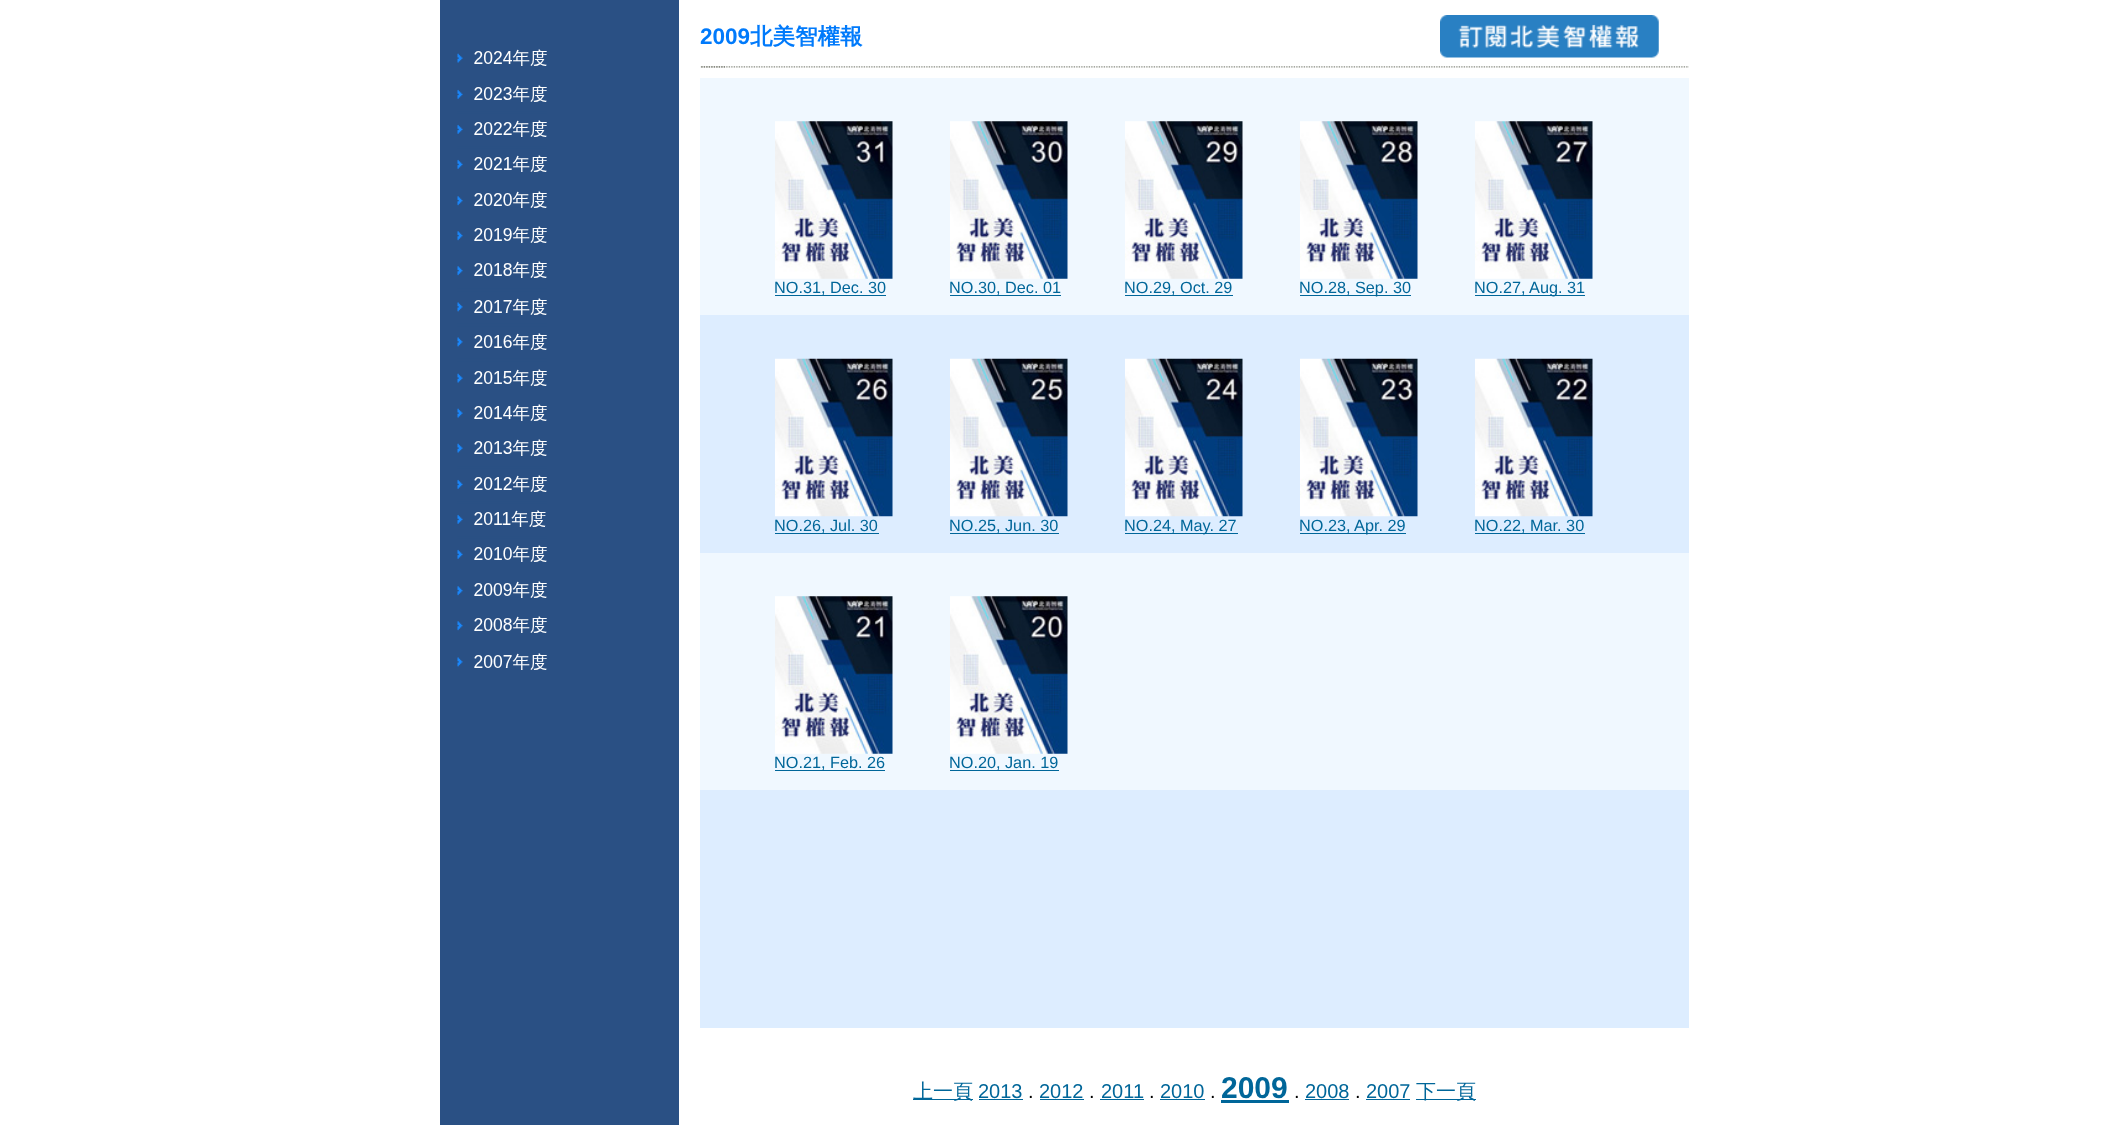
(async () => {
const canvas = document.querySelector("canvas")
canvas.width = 2128
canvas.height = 1134
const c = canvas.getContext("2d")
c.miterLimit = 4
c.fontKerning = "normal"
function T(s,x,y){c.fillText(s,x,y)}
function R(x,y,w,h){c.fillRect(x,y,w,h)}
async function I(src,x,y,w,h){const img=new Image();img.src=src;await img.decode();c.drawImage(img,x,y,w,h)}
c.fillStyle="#fff"
R(0,0,2128,1134)
c.fillStyle="#2a5084"
R(440,0,239,1125)
await I("1.png",457,49,90,621)
c.font="bold 22.5px Liberation Sans"
c.fillStyle="#007afb"
T("2009",700,44)
c.font="bold 22.5px WenQuanYi Zen Hei"
T("北美智權報",750,44)
await I("2.png",1440,15,219,43)
await I("3.png",700,66,989,2)
await I("4.png",701,66,24,2)
c.fillStyle="#f0f8ff"
R(700,78,989,237)
await I("5.png",775,121,118,158)
c.fillStyle="#069"
R(775,295,111,1)
c.font="16.25px Liberation Sans"
T("NO.31, Dec. 30",774,293)
await I("6.png",950,121,118,158)
R(950,295,111,1)
T("NO.30, Dec. 01",949,293)
await I("7.png",1125,121,118,158)
R(1125,295,108,1)
T("NO.29, Oct. 29",1124,293)
await I("8.png",1300,121,118,158)
R(1300,295,111,1)
T("NO.28, Sep. 30",1299,293)
await I("9.png",1475,121,118,158)
R(1475,295,110,1)
T("NO.27, Aug. 31",1474,293)
c.fillStyle="#ddedff"
R(700,315,989,238)
await I("10.png",775,358,118,159)
c.fillStyle="#069"
R(775,533,104,1)
T("NO.26, Jul. 30",774,531)
await I("11.png",950,358,118,159)
R(950,533,109,1)
T("NO.25, Jun. 30",949,531)
await I("12.png",1125,358,118,159)
R(1125,533,113,1)
T("NO.24, May. 27",1124,531)
await I("13.png",1300,358,118,159)
R(1300,533,106,1)
T("NO.23, Apr. 29",1299,531)
await I("14.png",1475,358,118,159)
R(1475,533,110,1)
T("NO.22, Mar. 30",1474,531)
c.fillStyle="#f0f8ff"
R(700,553,989,237)
await I("15.png",775,596,118,158)
c.fillStyle="#069"
R(775,770,110,1)
T("NO.21, Feb. 26",774,768)
await I("16.png",950,596,118,158)
R(950,770,109,1)
T("NO.20, Jan. 19",949,768)
c.fillStyle="#ddedff"
R(700,790,989,238)
c.fillStyle="#069"
R(913,1099,60,1)
c.font="500 20px WenQuanYi Zen Hei"
T("上一頁",913,1098)
c.font="20px Liberation Sans"
T("2013",978,1098)
R(979,1099,44,1)
c.fillStyle="#000"
T(".",1028,1098)
c.fillStyle="#069"
T("2012",1039,1098)
R(1040,1099,44,1)
c.fillStyle="#000"
T(".",1089,1098)
c.fillStyle="#069"
T("2011",1101,1098)
R(1100,1099,44,1)
c.fillStyle="#000"
T(".",1149,1098)
c.fillStyle="#069"
T("2010",1160,1098)
R(1160,1099,45,1)
c.fillStyle="#000"
T(".",1210,1098)
c.font="bold 30px Liberation Sans"
c.fillStyle="#069"
T("2009",1221,1098)
R(1221,1100,68,3)
c.font="20px Liberation Sans"
c.fillStyle="#000"
T(".",1294,1098)
c.fillStyle="#069"
T("2008",1305,1098)
R(1305,1099,44,1)
c.fillStyle="#000"
T(".",1355,1098)
c.fillStyle="#069"
T("2007",1366,1098)
R(1366,1099,44,1)
R(1416,1099,60,1)
c.font="500 20px WenQuanYi Zen Hei"
T("下一頁",1416,1098)
})()
